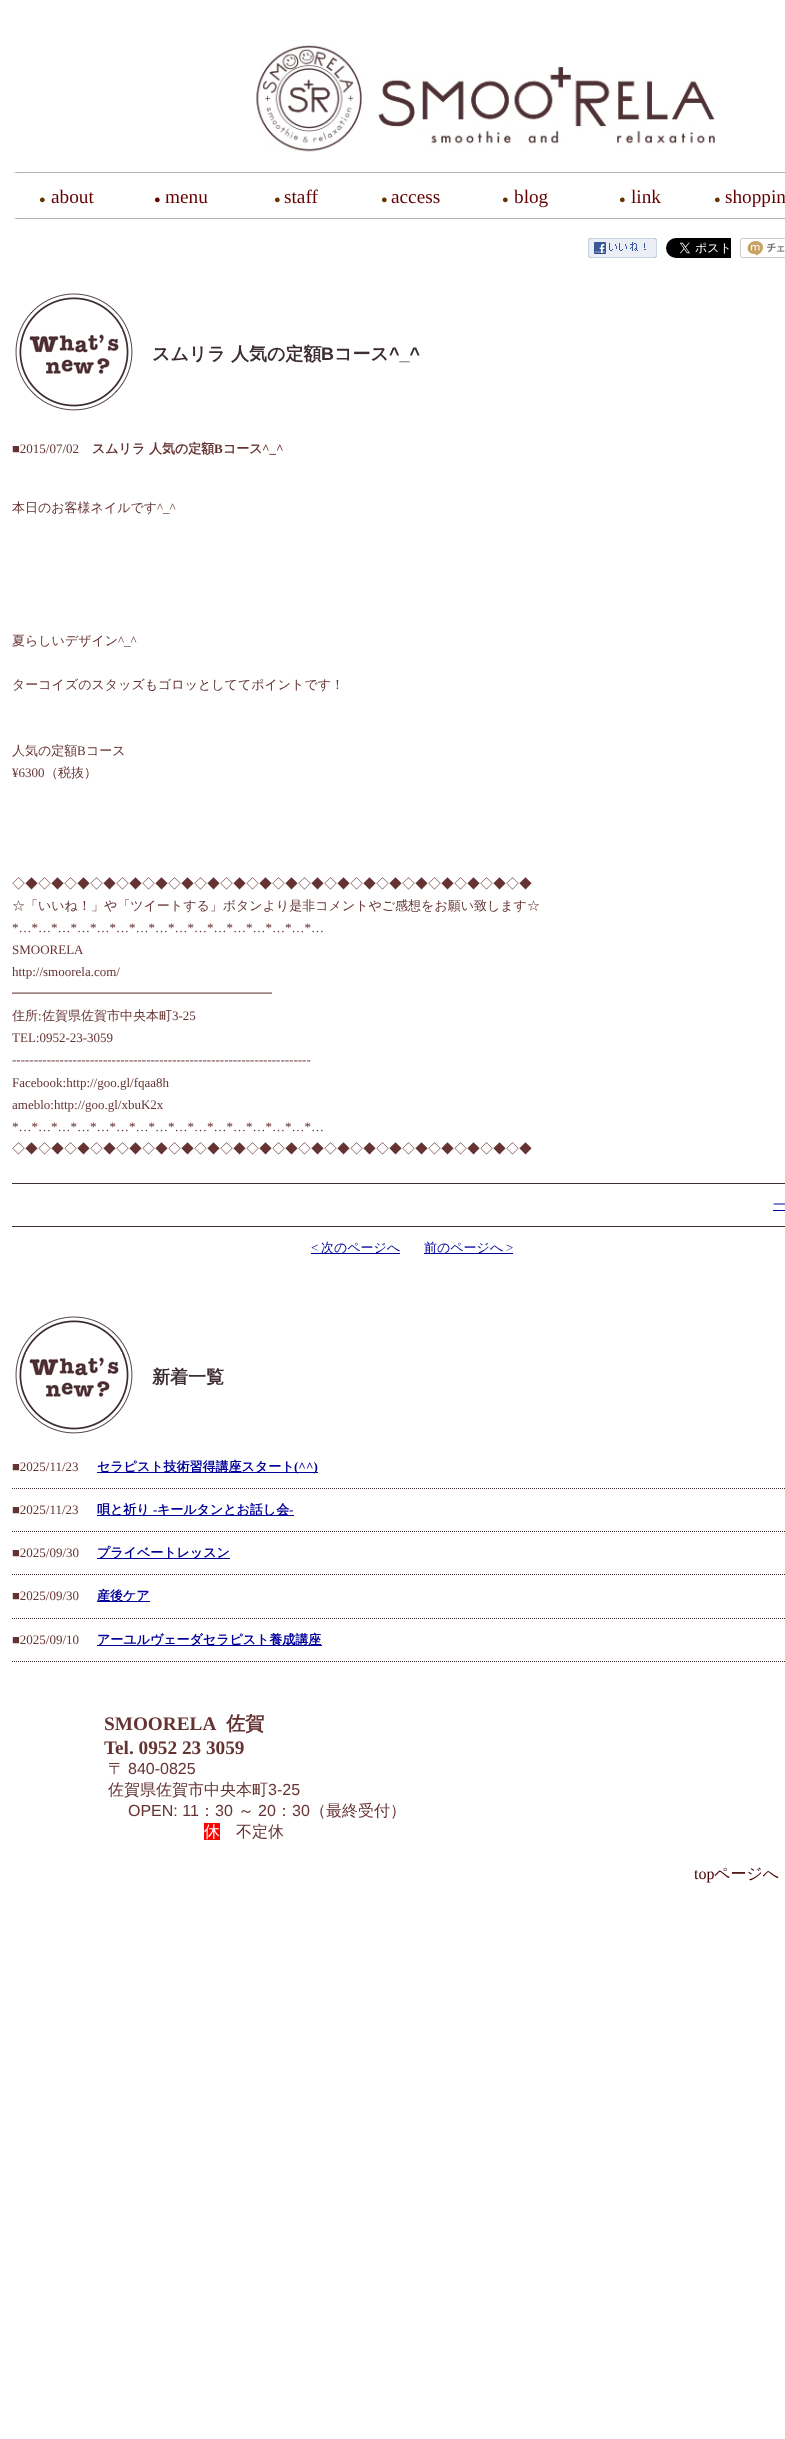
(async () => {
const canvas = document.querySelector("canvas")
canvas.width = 785
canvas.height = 2439
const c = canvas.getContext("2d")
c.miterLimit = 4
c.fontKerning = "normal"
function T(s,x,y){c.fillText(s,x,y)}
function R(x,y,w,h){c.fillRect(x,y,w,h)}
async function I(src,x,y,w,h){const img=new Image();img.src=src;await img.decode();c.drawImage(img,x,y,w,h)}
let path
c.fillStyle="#fff"
R(0,0,785,2439)
await I("1.png",256,45,459,107)
await I("2.png",11,172,774,3)
c.font="11px Liberation Serif"
c.fillStyle="#630"
T("●",39,203)
c.font="19.25px Liberation Serif"
c.fillStyle="#600"
T("about",51,203)
c.font="11px Liberation Serif"
T("●",154,203)
c.font="19.25px Liberation Serif"
T("menu",165,203)
c.font="11px Liberation Serif"
c.fillStyle="#630"
T("●",274,203)
c.font="19.25px Liberation Serif"
c.fillStyle="#600"
T("staff",284,203)
c.font="11px Liberation Serif"
c.fillStyle="#630"
T("●",381,203)
c.font="19.25px Liberation Serif"
c.fillStyle="#600"
T("access",391,203)
c.font="11px Liberation Serif"
c.fillStyle="#630"
T("●",502,203)
c.font="19.25px Liberation Serif"
c.fillStyle="#600"
T("blog",514,203)
c.font="11px Liberation Serif"
c.fillStyle="#630"
T("●",619,203)
c.font="19.25px Liberation Serif"
c.fillStyle="#600"
T("link",631,203)
c.font="11px Liberation Serif"
c.fillStyle="#630"
T("●",714,203)
c.font="19.25px Liberation Serif"
c.fillStyle="#600"
T("shoppin",725,203)
await I("2.png",11,218,774,3)
await I("3.png",588,238,69,20)
await I("4.png",666,238,65,20)
await I("5.png",740,238,45,20)
await I("6.png",15,293,118,118)
c.font="bold 18px WenQuanYi Zen Hei"
c.fillStyle="#3c2d30"
T("スムリラ",152,360)
T("人気の定額",231,360)
c.font="bold 18px Liberation Sans"
T("B",321,360)
c.font="bold 18px WenQuanYi Zen Hei"
T("コース",334,360)
c.font="bold 18px Liberation Sans"
T("^_^",389,360)
c.font="13px Liberation Serif"
c.fillStyle="#633"
T("■2015/07/02",12,453)
c.font="bold 13px WenQuanYi Zen Hei"
T("スムリラ",92,453)
T("人気の定額",149,453)
c.font="bold 13px Liberation Serif"
T("B",214,453)
c.font="bold 13px WenQuanYi Zen Hei"
T("コース",223,453)
c.font="bold 13px Liberation Serif"
T("^_^",262,453)
c.font="500 13px WenQuanYi Zen Hei"
T("本日のお客様ネイルです",12,512)
c.font="13px Liberation Serif"
T("^_^",157,512)
c.font="500 13px WenQuanYi Zen Hei"
T("夏らしいデザイン",12,645)
c.font="13px Liberation Serif"
T("^_^",118,645)
c.font="500 13px WenQuanYi Zen Hei"
T("ターコイズのスタッズもゴロッとしててポイントです！",12,689)
T("人気の定額",12,755)
c.font="13px Liberation Serif"
T("B",77,755)
c.font="500 13px WenQuanYi Zen Hei"
T("コース",86,755)
c.font="13px Liberation Serif"
T("¥6300",12,777)
c.font="500 13px WenQuanYi Zen Hei"
T("（税抜）",45,777)
T("◇◆◇◆◇◆◇◆◇◆◇◆◇◆◇◆◇◆◇◆◇◆◇◆◇◆◇◆◇◆◇◆◇◆◇◆◇◆◇◆",12,888)
T("☆「いいね！」や「ツイートする」ボタンより是非コメントやご感想をお願い致します☆",12,910)
c.font="13px Liberation Serif"
T("*…*…*…*…*…*…*…*…*…*…*…*…*…*…*…*…",12,932)
T("SMOORELA",12,954)
T("http://smoorela.com/",12,976)
c.font="500 13px WenQuanYi Zen Hei"
T("━━━━━━━━━━━━━━━━━━━━",12,998)
T("住所 佐賀県佐賀市中央本町",12,1020)
c.font="13px Liberation Serif"
T("3-25",172,1020)
T(":",38,1020)
T("TEL:0952-23-3059",12,1042)
T("---------------------------------------------------------------------",12,1064)
T("Facebook:http://goo.gl/fqaa8h",12,1087)
T("ameblo:http://goo.gl/xbuK2x",12,1109)
T("*…*…*…*…*…*…*…*…*…*…*…*…*…*…*…*…",12,1131)
c.font="500 13px WenQuanYi Zen Hei"
T("◇◆◇◆◇◆◇◆◇◆◇◆◇◆◇◆◇◆◇◆◇◆◇◆◇◆◇◆◇◆◇◆◇◆◇◆◇◆◇◆",12,1153)
c.fillStyle="#3c2d30"
R(12,1183,773,1)
c.fillStyle="#009"
T("一",773,1209)
R(773,1210,12,1)
c.fillStyle="#3c2d30"
R(12,1226,773,1)
c.font="13px Liberation Serif"
c.fillStyle="#009"
T("<",311,1252)
R(311,1253,89,1)
c.font="500 13px WenQuanYi Zen Hei"
T("次のページへ",321,1252)
R(424,1253,89,1)
T("前のページへ",424,1252)
c.font="13px Liberation Serif"
T(">",506,1252)
await I("6.png",15,1316,118,118)
c.font="bold 18px WenQuanYi Zen Hei"
c.fillStyle="#3c2d30"
T("新着一覧",152,1383)
c.font="13px Liberation Serif"
c.fillStyle="#633"
T("■2025/11/23",12,1471)
c.fillStyle="#009"
R(97,1472,221,1)
c.font="bold 13px WenQuanYi Zen Hei"
T("セラピスト技術習得講座スタート",97,1471)
c.font="bold 13px Liberation Serif"
T("(^^)",294,1471)
path = new Path2D("M12 1488.5h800")
c.strokeStyle="#3c2d30"
c.setLineDash([1,1])
c.stroke(path)
c.font="13px Liberation Serif"
c.fillStyle="#633"
T("■2025/11/23",12,1514)
c.fillStyle="#009"
R(97,1515,197,1)
c.font="bold 13px WenQuanYi Zen Hei"
T("唄と祈り",97,1514)
c.font="bold 13px Liberation Serif"
T("-",153,1514)
c.font="bold 13px WenQuanYi Zen Hei"
T("キールタンとお話し会",157,1514)
c.font="bold 13px Liberation Serif"
T("-",289,1514)
path = new Path2D("M12 1531.5h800")
c.stroke(path)
c.font="13px Liberation Serif"
c.fillStyle="#633"
T("■2025/09/30",12,1557)
c.fillStyle="#009"
R(97,1558,133,1)
c.font="bold 13px WenQuanYi Zen Hei"
T("プライベートレッスン",97,1557)
path = new Path2D("M12 1574.5h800")
c.stroke(path)
c.font="13px Liberation Serif"
c.fillStyle="#633"
T("■2025/09/30",12,1600)
c.fillStyle="#009"
R(97,1601,53,1)
c.font="bold 13px WenQuanYi Zen Hei"
T("産後ケア",97,1600)
path = new Path2D("M12 1618.5h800")
c.stroke(path)
path = new Path2D("M12 1661.5h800")
c.stroke(path)
c.font="13px Liberation Serif"
c.fillStyle="#633"
T("■2025/09/10",12,1644)
c.fillStyle="#009"
R(97,1645,225,1)
c.font="bold 13px WenQuanYi Zen Hei"
T("アーユルヴェーダセラピスト養成講座",97,1644)
c.font="bold 19.25px Liberation Serif"
c.fillStyle="#633"
T("SMOORELA",104,1730)
c.font="bold 19.25px WenQuanYi Zen Hei"
T("佐賀",226,1730)
c.font="bold 19.25px Liberation Serif"
T("Tel. 0952 23 3059",104,1754)
c.font="500 16px WenQuanYi Zen Hei"
T("〒",108,1774)
c.font="16px Liberation Sans"
T("840-0825",128,1774)
c.font="500 16px WenQuanYi Zen Hei"
T("佐賀県佐賀市中央本町",108,1795)
c.font="16px Liberation Sans"
T("3-25",268,1795)
T("OPEN: 11",128,1816)
c.font="500 16px WenQuanYi Zen Hei"
T("：",199,1816)
c.font="16px Liberation Sans"
T("30",215,1816)
c.font="500 16px WenQuanYi Zen Hei"
T("～",238,1816)
c.font="16px Liberation Sans"
T("20",258,1816)
c.font="500 16px WenQuanYi Zen Hei"
T("：",276,1816)
c.font="16px Liberation Sans"
T("30",292,1816)
c.font="500 16px WenQuanYi Zen Hei"
T("（最終受付）",310,1816)
c.fillStyle="#f00"
R(204,1823,16,17)
c.fillStyle="#fff"
T("休",204,1837)
c.fillStyle="#633"
T("不定休",236,1837)
c.font="16px Liberation Serif"
c.fillStyle="#420000"
T("top",694,1879)
c.font="500 16px WenQuanYi Zen Hei"
T("ページへ",714,1879)
})()
